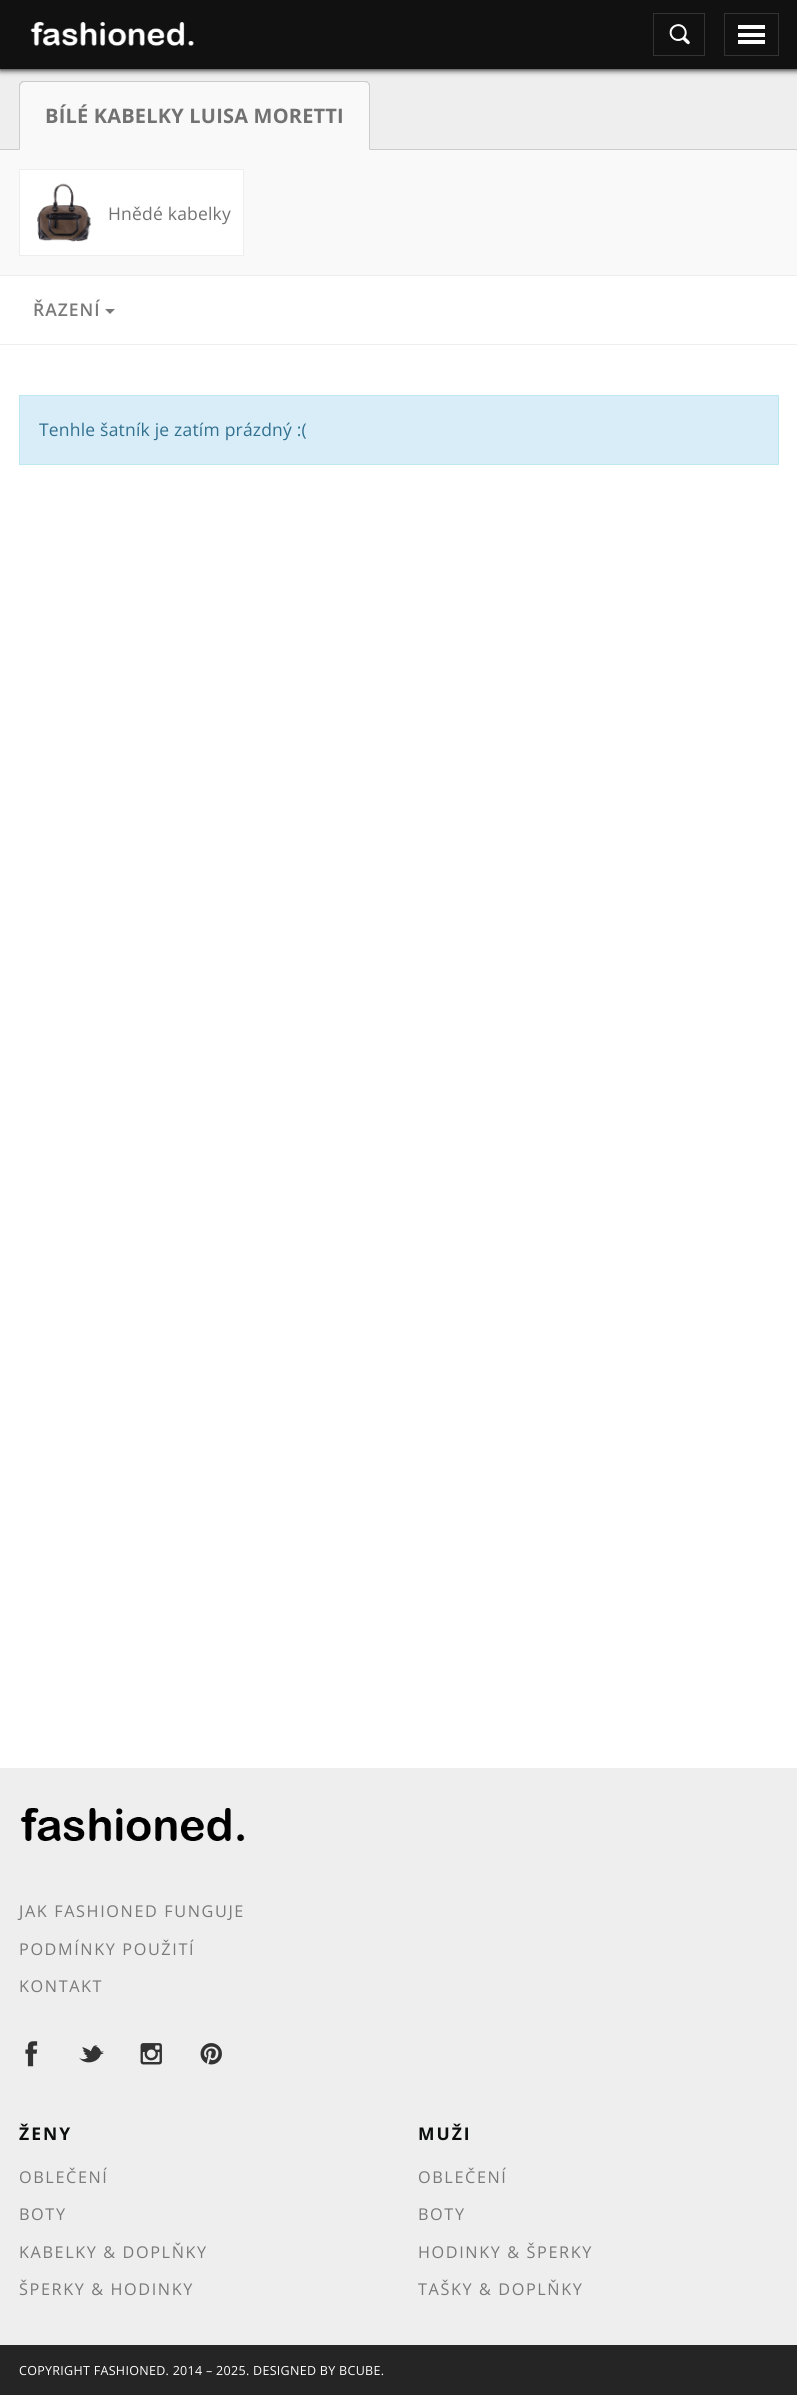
#include <cairo.h>
#include <math.h>
#include <stddef.h>


static void spaced_text(cairo_t *cr, double x, double y, const char *s, double letter, double word) {
    cairo_move_to(cr, x, y);
    while (*s) {
        char ch[5] = {0};
        int n = 0;
        do ch[n++] = *s++; while ((*s & 0xC0) == 0x80);
        cairo_show_text(cr, ch);
        cairo_rel_move_to(cr, letter + word * (*ch == ' '), 0);
    }
}

static void round_rect(cairo_t *cr, double x, double y, double w, double h, double r) {
    cairo_new_sub_path(cr);
    cairo_arc(cr, x + w - r, y + h - r, r, 0, M_PI / 2);
    cairo_arc(cr, x + r, y + h - r, r, M_PI / 2, M_PI);
    cairo_arc(cr, x + r, y + r, r, M_PI, 1.5 * M_PI);
    cairo_arc(cr, x + w - r, y + r, r, 1.5 * M_PI, 2 * M_PI);
    cairo_close_path(cr);
}

static void shadow(cairo_t *cr, double x, double y, double w, double h, double r, double blur, double alpha) {
    cairo_push_group_with_content(cr, CAIRO_CONTENT_ALPHA);
    cairo_set_operator(cr, CAIRO_OPERATOR_SOURCE);
    for (int i = 15; i >= -15 && fmin(w, h) + blur * i / 3 > 0; i -= 2) {
        double e = blur * i / 6;
        cairo_set_source_rgba(cr, 0, 0, 0, alpha * erfc((i - 1) / 8.5) / 2);
        round_rect(cr, x - e, y - e, w + 2 * e, h + 2 * e, fmax(0, fmin(r + e + blur * .6, fmin(w, h) / 2 + e)));
        cairo_fill(cr);
    }
    cairo_pattern_t *soft = cairo_pop_group(cr);
    cairo_mask(cr, soft);
    cairo_pattern_destroy(soft);
}

static void picture(cairo_t *cr, const char *path, double x, double y, double w, double h) {
    cairo_surface_t *image = cairo_image_surface_create_from_png(path);
    cairo_save(cr);
    cairo_set_source_surface(cr, image, x, y);
    cairo_rectangle(cr, x, y, w, h);
    cairo_fill(cr);
    cairo_restore(cr);
    cairo_surface_destroy(image);
}

int main(void) {
    cairo_surface_t *surface = cairo_image_surface_create(CAIRO_FORMAT_RGB24, 797, 2395);
    cairo_t *cr = cairo_create(surface);
    cairo_font_options_t *options = cairo_font_options_create();
    cairo_font_options_set_hint_metrics(options, CAIRO_HINT_METRICS_OFF);
    cairo_font_options_set_hint_style(options, CAIRO_HINT_STYLE_NONE);
    cairo_set_font_options(cr, options);
    cairo_set_miter_limit(cr, 4);
    cairo_set_source_rgb(cr, 1, 1, 1);
    cairo_paint(cr);
    cairo_set_source_rgb(cr, 0.933, 0.933, 0.933);
    cairo_rectangle(cr, 0, 69, 797, 80);
    cairo_fill(cr);
    cairo_set_source_rgb(cr, 0.067, 0.067, 0.067);
    shadow(cr, 0, 1, 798, 69, 0, 3, 1);
    cairo_set_source_rgb(cr, 0.067, 0.067, 0.067);
    cairo_rectangle(cr, 0, 0, 797, 69);
    cairo_fill(cr);
    picture(cr, "img1.png", 30, 22, 164, 24);
    cairo_rectangle(cr, 653.5, 13.5, 51, 42);
    cairo_set_source_rgb(cr, 0.2, 0.2, 0.2);
    cairo_set_line_width(cr, 1);
    cairo_stroke(cr);
    picture(cr, "img2.png", 669, 24, 21, 21);
    cairo_rectangle(cr, 724.5, 13.5, 54, 42);
    cairo_stroke(cr);
    cairo_set_source_rgb(cr, 1, 1, 1);
    cairo_rectangle(cr, 738, 25, 27, 4);
    cairo_fill(cr);
    cairo_rectangle(cr, 738, 33, 27, 4);
    cairo_fill(cr);
    cairo_rectangle(cr, 738, 40, 27, 4);
    cairo_fill(cr);
    cairo_set_source_rgb(cr, 0.8, 0.8, 0.8);
    cairo_rectangle(cr, 0, 149, 797, 1);
    cairo_fill(cr);
    cairo_set_source_rgb(cr, 0.973, 0.973, 0.973);
    cairo_new_path(cr);
    cairo_move_to(cr, 24, 81);
    cairo_line_to(cr, 365, 81);
    cairo_curve_to(cr, 368, 81, 370, 83, 370, 86);
    cairo_line_to(cr, 370, 150);
    cairo_line_to(cr, 19, 150);
    cairo_line_to(cr, 19, 86);
    cairo_curve_to(cr, 19, 83, 21, 81, 24, 81);
    cairo_close_path(cr);
    cairo_fill(cr);
    cairo_set_source_rgb(cr, 0.8, 0.8, 0.8);
    cairo_new_path(cr);
    cairo_move_to(cr, 24, 82);
    cairo_curve_to(cr, 23, 82, 22, 83, 21, 84);
    cairo_line_to(cr, 20, 83);
    cairo_line_to(cr, 22, 81);
    cairo_line_to(cr, 367, 81);
    cairo_line_to(cr, 369, 83);
    cairo_line_to(cr, 368, 83);
    cairo_line_to(cr, 365, 82);
    cairo_close_path(cr);
    cairo_fill(cr);
    cairo_new_path(cr);
    cairo_move_to(cr, 370, 150);
    cairo_line_to(cr, 370, 86);
    cairo_curve_to(cr, 370, 85, 370, 83, 369, 83);
    cairo_line_to(cr, 368, 83);
    cairo_line_to(cr, 369, 86);
    cairo_line_to(cr, 369, 149);
    cairo_close_path(cr);
    cairo_fill(cr);
    cairo_new_path(cr);
    cairo_move_to(cr, 19, 150);
    cairo_line_to(cr, 19, 86);
    cairo_curve_to(cr, 19, 85, 19, 83, 20, 83);
    cairo_line_to(cr, 21, 84);
    cairo_line_to(cr, 20, 86);
    cairo_line_to(cr, 20, 149);
    cairo_close_path(cr);
    cairo_fill(cr);
    cairo_select_font_face(cr, "Open Sans", CAIRO_FONT_SLANT_NORMAL, CAIRO_FONT_WEIGHT_BOLD);
    cairo_set_font_size(cr, 20);
    cairo_set_source_rgb(cr, 0.447, 0.447, 0.447);
    spaced_text(cr, 45, 123, "BÍLÉ KABELKY LUISA MORETTI", 0.2, 0);
    cairo_set_source_rgb(cr, 0.973, 0.973, 0.973);
    cairo_rectangle(cr, 0, 150, 797, 125);
    cairo_fill(cr);
    cairo_set_source_rgb(cr, 0.933, 0.933, 0.933);
    cairo_rectangle(cr, 0, 275, 797, 1);
    cairo_fill(cr);
    cairo_set_source_rgb(cr, 1, 1, 1);
    cairo_rectangle(cr, 19.5, 169.5, 224, 86);
    cairo_fill_preserve(cr);
    cairo_set_source_rgb(cr, 0.933, 0.933, 0.933);
    cairo_stroke(cr);
    picture(cr, "img3.png", 37, 183, 55, 59);
    cairo_select_font_face(cr, "Open Sans", CAIRO_FONT_SLANT_NORMAL, CAIRO_FONT_WEIGHT_NORMAL);
    cairo_set_font_size(cr, 17.5);
    cairo_set_source_rgb(cr, 0.447, 0.447, 0.447);
    spaced_text(cr, 108, 220, "Hnědé kabelky", 0.2, 0);
    cairo_set_source_rgb(cr, 0.933, 0.933, 0.933);
    cairo_rectangle(cr, 0, 344, 797, 1);
    cairo_fill(cr);
    cairo_select_font_face(cr, "Open Sans SemiBold", CAIRO_FONT_SLANT_NORMAL, CAIRO_FONT_WEIGHT_NORMAL);
    cairo_set_source_rgb(cr, 0.475, 0.475, 0.475);
    spaced_text(cr, 33, 316, "ŘAZENÍ", 1, 0);
    cairo_new_path(cr);
    cairo_move_to(cr, 105, 309);
    cairo_line_to(cr, 115, 309);
    cairo_line_to(cr, 110, 314);
    cairo_close_path(cr);
    cairo_fill(cr);
    cairo_set_source_rgb(cr, 0.851, 0.929, 0.969);
    cairo_rectangle(cr, 19.5, 395.5, 759, 69);
    cairo_fill_preserve(cr);
    cairo_set_source_rgb(cr, 0.737, 0.91, 0.945);
    cairo_stroke(cr);
    cairo_select_font_face(cr, "Open Sans", CAIRO_FONT_SLANT_NORMAL, CAIRO_FONT_WEIGHT_NORMAL);
    cairo_set_source_rgb(cr, 0.192, 0.439, 0.561);
    spaced_text(cr, 39, 436, "Tenhle šatník je zatím prázdný :(", 0.2, 0);
    cairo_set_source_rgb(cr, 0.933, 0.933, 0.933);
    cairo_rectangle(cr, 0, 1768, 797, 577);
    cairo_fill(cr);
    picture(cr, "img4.png", 20, 1808, 225, 33);
    cairo_set_font_size(cr, 16.25);
    cairo_set_source_rgb(cr, 0.475, 0.475, 0.475);
    spaced_text(cr, 19, 1917, "JAK FASHIONED FUNGUJE", 1.6, 0);
    spaced_text(cr, 19, 1955, "PODMÍNKY POUŽITÍ", 1.6, 0);
    spaced_text(cr, 19, 1992, "KONTAKT", 1.6, 0);
    picture(cr, "img5.png", 25, 2041, 13, 26);
    picture(cr, "img6.png", 79, 2045, 25, 18);
    picture(cr, "img7.png", 140, 2043, 22, 22);
    picture(cr, "img8.png", 200, 2043, 22, 22);
    cairo_select_font_face(cr, "Open Sans", CAIRO_FONT_SLANT_NORMAL, CAIRO_FONT_WEIGHT_BOLD);
    cairo_set_font_size(cr, 17.5);
    cairo_set_source_rgb(cr, 0.047, 0.051, 0.051);
    spaced_text(cr, 19, 2140, "ŽENY", 2, 0);
    cairo_select_font_face(cr, "Open Sans", CAIRO_FONT_SLANT_NORMAL, CAIRO_FONT_WEIGHT_NORMAL);
    cairo_set_font_size(cr, 16.25);
    cairo_set_source_rgb(cr, 0.475, 0.475, 0.475);
    spaced_text(cr, 19, 2183, "OBLEČENÍ", 1.6, 0);
    spaced_text(cr, 19, 2220, "BOTY", 1.6, 0);
    spaced_text(cr, 19, 2258, "KABELKY & DOPLŇKY", 1.6, 0);
    spaced_text(cr, 19, 2295, "ŠPERKY & HODINKY", 1.6, 0);
    cairo_select_font_face(cr, "Open Sans", CAIRO_FONT_SLANT_NORMAL, CAIRO_FONT_WEIGHT_BOLD);
    cairo_set_font_size(cr, 17.5);
    cairo_set_source_rgb(cr, 0.047, 0.051, 0.051);
    spaced_text(cr, 418, 2140, "MUŽI", 2, 0);
    cairo_select_font_face(cr, "Open Sans", CAIRO_FONT_SLANT_NORMAL, CAIRO_FONT_WEIGHT_NORMAL);
    cairo_set_font_size(cr, 16.25);
    cairo_set_source_rgb(cr, 0.475, 0.475, 0.475);
    spaced_text(cr, 418, 2183, "OBLEČENÍ", 1.6, 0);
    spaced_text(cr, 418, 2220, "BOTY", 1.6, 0);
    spaced_text(cr, 418, 2258, "HODINKY & ŠPERKY", 1.6, 0);
    spaced_text(cr, 418, 2295, "TAŠKY & DOPLŇKY", 1.6, 0);
    cairo_set_source_rgb(cr, 0.145, 0.145, 0.145);
    cairo_rectangle(cr, 0, 2345, 797, 50);
    cairo_fill(cr);
    cairo_set_font_size(cr, 12.5);
    cairo_set_source_rgb(cr, 1, 1, 1);
    spaced_text(cr, 19, 2375, "COPYRIGHT FASHIONED. 2014 – 2025. DESIGNED BY BCUBE.", 0.3, 0);
    cairo_surface_write_to_png(surface, "page.png");
    cairo_font_options_destroy(options);
    cairo_destroy(cr);
    cairo_surface_destroy(surface);
    return 0;
}
